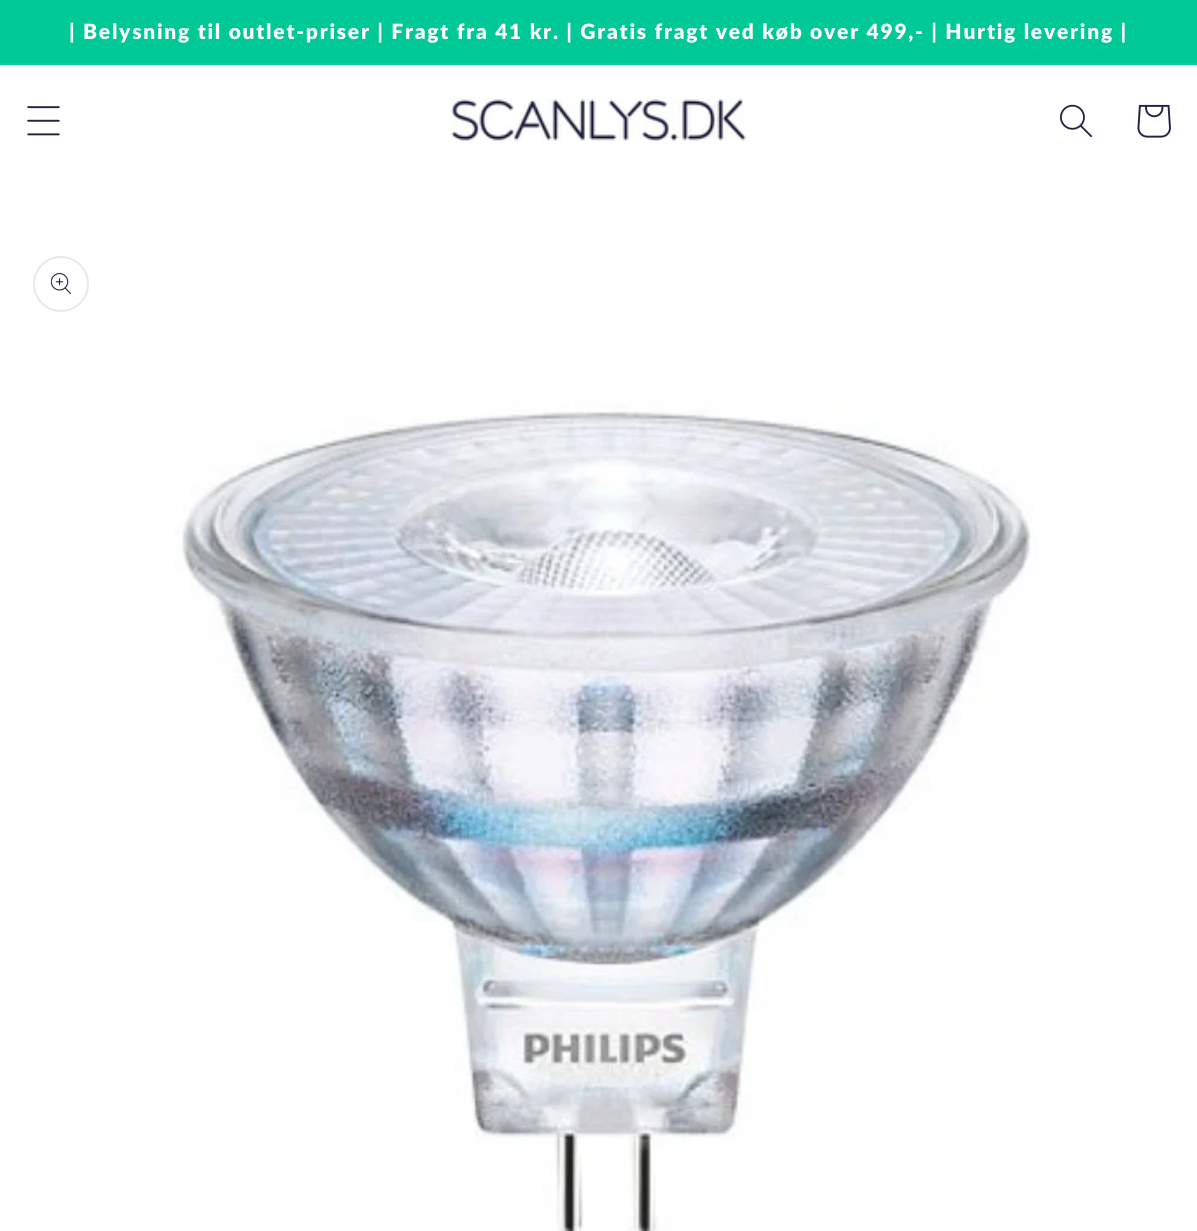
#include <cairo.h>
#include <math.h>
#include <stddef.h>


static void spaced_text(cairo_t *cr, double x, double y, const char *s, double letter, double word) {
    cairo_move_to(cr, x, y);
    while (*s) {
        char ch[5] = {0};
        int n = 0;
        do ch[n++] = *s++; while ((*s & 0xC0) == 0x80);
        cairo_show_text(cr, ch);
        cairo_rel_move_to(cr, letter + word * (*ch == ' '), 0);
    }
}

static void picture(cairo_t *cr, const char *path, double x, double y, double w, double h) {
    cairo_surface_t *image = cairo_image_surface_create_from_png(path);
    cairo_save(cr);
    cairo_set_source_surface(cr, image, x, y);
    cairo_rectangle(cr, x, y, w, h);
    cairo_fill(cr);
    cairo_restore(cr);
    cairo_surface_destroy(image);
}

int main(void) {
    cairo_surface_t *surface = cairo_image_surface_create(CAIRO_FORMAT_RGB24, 1197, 1231);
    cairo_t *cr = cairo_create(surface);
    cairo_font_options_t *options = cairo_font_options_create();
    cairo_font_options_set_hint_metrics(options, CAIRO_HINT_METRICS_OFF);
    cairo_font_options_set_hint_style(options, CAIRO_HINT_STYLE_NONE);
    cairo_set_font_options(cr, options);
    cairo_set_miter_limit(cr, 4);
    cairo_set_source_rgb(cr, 1, 1, 1);
    cairo_paint(cr);
    cairo_set_source_rgb(cr, 0, 0.784, 0.588);
    cairo_rectangle(cr, 0, 0, 1197, 63);
    cairo_fill(cr);
    cairo_set_source_rgb(cr, 0.078, 0.8, 0.62);
    cairo_rectangle(cr, 0, 63, 1197, 2);
    cairo_fill(cr);
    cairo_select_font_face(cr, "Lato ExtraBold", CAIRO_FONT_SLANT_NORMAL, CAIRO_FONT_WEIGHT_NORMAL);
    cairo_set_font_size(cr, 21);
    cairo_set_source_rgb(cr, 1, 1, 1);
    spaced_text(cr, 69, 39, "| Belysning til outlet-priser | Fragt fra 41 kr. | Gratis fragt ved køb over 499,- | Hurtig levering |", 1.75, 0);
    picture(cr, "img1.png", 27, 106, 33, 30);
    picture(cr, "img2.png", 450, 98, 296, 43);
    picture(cr, "img3.png", 1060, 104, 32, 34);
    picture(cr, "img4.png", 1137, 104, 34, 34);
    cairo_arc(cr, 61, 284, 27, 0, 2 * M_PI);
    cairo_set_source_rgb(cr, 0.914, 0.914, 0.929);
    cairo_stroke(cr);
    picture(cr, "img5.png", 51, 273, 20, 21);
    picture(cr, "img6.png", 174, 401, 864, 830);
    cairo_surface_write_to_png(surface, "page.png");
    cairo_font_options_destroy(options);
    cairo_destroy(cr);
    cairo_surface_destroy(surface);
    return 0;
}
